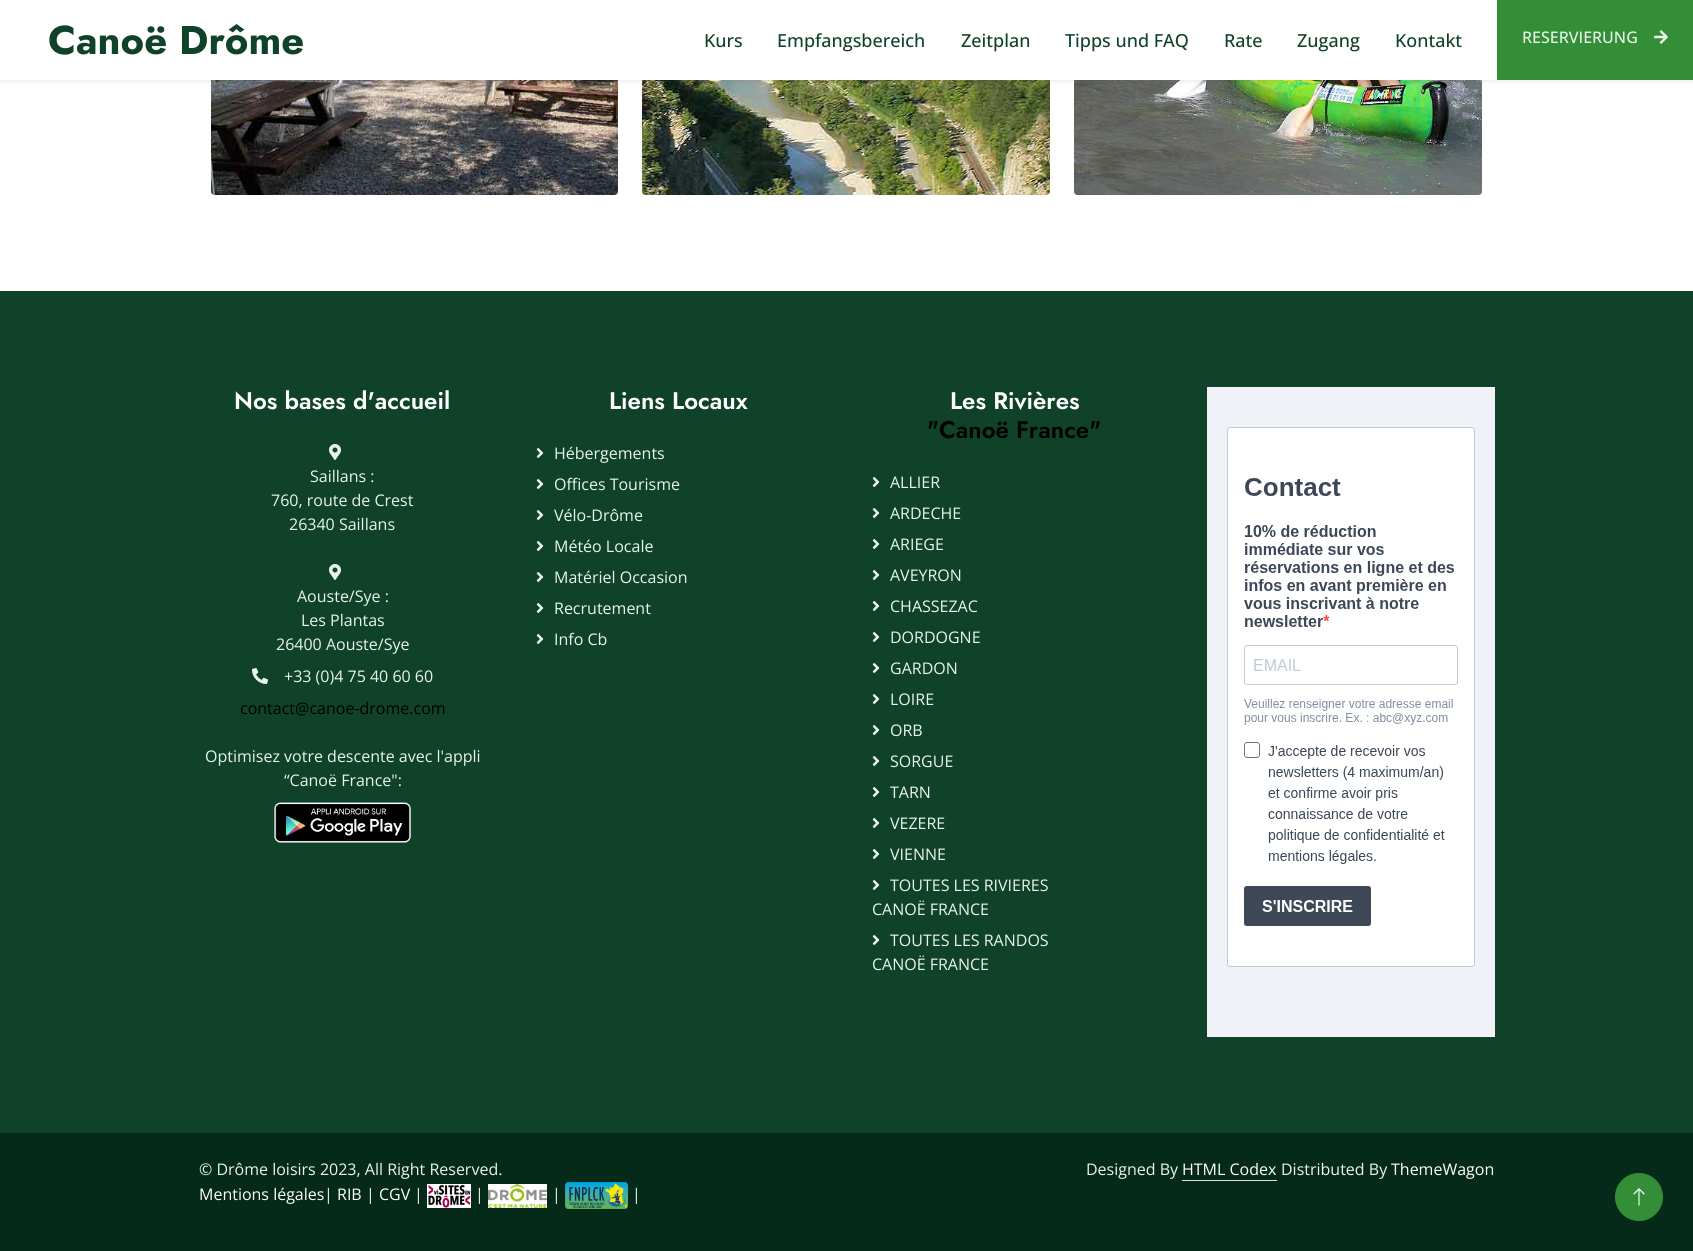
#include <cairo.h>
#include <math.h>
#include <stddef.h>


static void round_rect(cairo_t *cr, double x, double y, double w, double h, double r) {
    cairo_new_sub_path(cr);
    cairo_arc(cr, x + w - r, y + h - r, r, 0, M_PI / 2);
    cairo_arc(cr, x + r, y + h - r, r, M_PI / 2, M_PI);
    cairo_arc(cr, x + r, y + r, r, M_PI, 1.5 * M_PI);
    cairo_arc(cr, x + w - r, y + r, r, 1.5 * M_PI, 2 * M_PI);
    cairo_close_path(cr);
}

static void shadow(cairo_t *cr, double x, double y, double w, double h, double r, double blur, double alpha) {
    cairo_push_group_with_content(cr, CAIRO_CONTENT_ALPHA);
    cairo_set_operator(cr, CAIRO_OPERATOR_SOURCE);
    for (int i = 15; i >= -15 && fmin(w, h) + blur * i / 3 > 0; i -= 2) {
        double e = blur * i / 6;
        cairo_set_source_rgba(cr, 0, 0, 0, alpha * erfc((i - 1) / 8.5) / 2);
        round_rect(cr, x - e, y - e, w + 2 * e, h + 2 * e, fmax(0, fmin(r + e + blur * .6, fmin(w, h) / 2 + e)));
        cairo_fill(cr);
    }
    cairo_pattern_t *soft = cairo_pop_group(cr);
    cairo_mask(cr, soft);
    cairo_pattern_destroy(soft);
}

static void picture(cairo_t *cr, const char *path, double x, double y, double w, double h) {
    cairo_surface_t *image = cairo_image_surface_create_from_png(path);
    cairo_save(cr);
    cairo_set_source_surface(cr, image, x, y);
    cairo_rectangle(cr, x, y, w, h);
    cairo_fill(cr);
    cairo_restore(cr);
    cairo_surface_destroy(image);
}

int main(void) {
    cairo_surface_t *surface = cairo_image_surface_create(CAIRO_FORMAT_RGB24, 1693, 1251);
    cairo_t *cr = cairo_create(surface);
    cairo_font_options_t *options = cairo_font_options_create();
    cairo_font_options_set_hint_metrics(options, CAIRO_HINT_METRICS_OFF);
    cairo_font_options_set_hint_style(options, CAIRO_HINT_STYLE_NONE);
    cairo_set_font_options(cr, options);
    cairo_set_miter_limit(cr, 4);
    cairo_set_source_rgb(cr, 1, 1, 1);
    cairo_paint(cr);
    picture(cr, "img2.png", 211, 80, 407, 115);
    picture(cr, "img3.png", 642, 80, 408, 115);
    picture(cr, "img4.png", 1074, 80, 408, 115);
    cairo_set_source_rgb(cr, 0, 0, 0);
    shadow(cr, 0, 2, 1693, 80, 0, 2, 0.07);
    cairo_set_source_rgb(cr, 1, 1, 1);
    cairo_rectangle(cr, 0, 0, 1497, 80);
    cairo_fill(cr);
    cairo_select_font_face(cr, "Jost", CAIRO_FONT_SLANT_NORMAL, CAIRO_FONT_WEIGHT_BOLD);
    cairo_set_font_size(cr, 40);
    cairo_set_source_rgb(cr, 0.059, 0.259, 0.161);
    cairo_move_to(cr, 48, 54);
    cairo_show_text(cr, "Canoë Drôme");
    cairo_select_font_face(cr, "Open Sans Medium", CAIRO_FONT_SLANT_NORMAL, CAIRO_FONT_WEIGHT_NORMAL);
    cairo_set_font_size(cr, 18);
    cairo_move_to(cr, 704, 47);
    cairo_show_text(cr, "Kurs");
    cairo_move_to(cr, 777, 47);
    cairo_show_text(cr, "Empfangsbereich");
    cairo_move_to(cr, 961, 47);
    cairo_show_text(cr, "Zeitplan");
    cairo_move_to(cr, 1065, 47);
    cairo_show_text(cr, "Tipps und FAQ");
    cairo_move_to(cr, 1224, 47);
    cairo_show_text(cr, "Rate");
    cairo_move_to(cr, 1297, 47);
    cairo_show_text(cr, "Zugang");
    cairo_move_to(cr, 1395, 47);
    cairo_show_text(cr, "Kontakt");
    cairo_set_source_rgb(cr, 0.204, 0.557, 0.22);
    cairo_rectangle(cr, 1497, 0, 196, 80);
    cairo_fill(cr);
    cairo_set_font_size(cr, 16);
    cairo_set_source_rgb(cr, 0.91, 0.961, 0.914);
    cairo_move_to(cr, 1522, 43);
    cairo_show_text(cr, "RESERVIERUNG");
    picture(cr, "img1.png", 1654, 30, 14, 14);
    cairo_set_source_rgb(cr, 0.059, 0.259, 0.161);
    cairo_rectangle(cr, 0, 291, 1693, 842);
    cairo_fill(cr);
    cairo_select_font_face(cr, "Jost SemiBold", CAIRO_FONT_SLANT_NORMAL, CAIRO_FONT_WEIGHT_NORMAL);
    cairo_set_font_size(cr, 24);
    cairo_set_source_rgb(cr, 1, 1, 1);
    cairo_move_to(cr, 234, 409);
    cairo_show_text(cr, "Nos bases d'accueil");
    picture(cr, "img5.png", 329, 444, 12, 16);
    cairo_select_font_face(cr, "Open Sans", CAIRO_FONT_SLANT_NORMAL, CAIRO_FONT_WEIGHT_NORMAL);
    cairo_set_font_size(cr, 16);
    cairo_set_source_rgb(cr, 0.91, 0.961, 0.914);
    cairo_move_to(cr, 310, 482);
    cairo_show_text(cr, "Saillans :");
    cairo_move_to(cr, 271, 506);
    cairo_show_text(cr, "760, route de Crest");
    cairo_move_to(cr, 289, 530);
    cairo_show_text(cr, "26340 Saillans");
    picture(cr, "img5.png", 329, 564, 12, 16);
    cairo_move_to(cr, 297, 602);
    cairo_show_text(cr, "Aouste/Sye :");
    cairo_move_to(cr, 301, 626);
    cairo_show_text(cr, "Les Plantas");
    cairo_move_to(cr, 276, 650);
    cairo_show_text(cr, "26400 Aouste/Sye");
    picture(cr, "img6.png", 252, 668, 16, 16);
    cairo_move_to(cr, 284, 682);
    cairo_show_text(cr, "+33 (0)4 75 40 60 60");
    cairo_set_source_rgb(cr, 0, 0, 0);
    cairo_move_to(cr, 240, 714);
    cairo_show_text(cr, "contact@canoe-drome.com");
    cairo_set_source_rgb(cr, 0.91, 0.961, 0.914);
    cairo_move_to(cr, 205, 762);
    cairo_show_text(cr, "Optimisez votre descente avec l'appli");
    cairo_move_to(cr, 284, 786);
    cairo_show_text(cr, "“Canoë France\":");
    picture(cr, "img7.png", 274, 802, 137, 41);
    cairo_select_font_face(cr, "Jost SemiBold", CAIRO_FONT_SLANT_NORMAL, CAIRO_FONT_WEIGHT_NORMAL);
    cairo_set_font_size(cr, 24);
    cairo_set_source_rgb(cr, 1, 1, 1);
    cairo_move_to(cr, 609, 409);
    cairo_show_text(cr, "Liens Locaux");
    picture(cr, "img8.png", 536, 448, 8, 10);
    cairo_select_font_face(cr, "Open Sans", CAIRO_FONT_SLANT_NORMAL, CAIRO_FONT_WEIGHT_NORMAL);
    cairo_set_font_size(cr, 16);
    cairo_set_source_rgb(cr, 0.91, 0.961, 0.914);
    cairo_move_to(cr, 554, 459);
    cairo_show_text(cr, "Hébergements");
    picture(cr, "img8.png", 536, 479, 8, 10);
    cairo_move_to(cr, 554, 490);
    cairo_show_text(cr, "Offices Tourisme");
    picture(cr, "img8.png", 536, 510, 8, 10);
    cairo_move_to(cr, 554, 521);
    cairo_show_text(cr, "Vélo-Drôme");
    picture(cr, "img8.png", 536, 541, 8, 10);
    cairo_move_to(cr, 554, 552);
    cairo_show_text(cr, "Météo Locale");
    picture(cr, "img8.png", 536, 572, 8, 10);
    cairo_move_to(cr, 554, 583);
    cairo_show_text(cr, "Matériel Occasion");
    picture(cr, "img8.png", 536, 603, 8, 10);
    cairo_move_to(cr, 554, 614);
    cairo_show_text(cr, "Recrutement");
    picture(cr, "img8.png", 536, 634, 8, 10);
    cairo_move_to(cr, 554, 645);
    cairo_show_text(cr, "Info Cb");
    cairo_select_font_face(cr, "Jost SemiBold", CAIRO_FONT_SLANT_NORMAL, CAIRO_FONT_WEIGHT_NORMAL);
    cairo_set_font_size(cr, 24);
    cairo_set_source_rgb(cr, 1, 1, 1);
    cairo_move_to(cr, 950, 409);
    cairo_show_text(cr, "Les Rivières");
    cairo_set_source_rgb(cr, 0, 0, 0);
    cairo_move_to(cr, 927, 438);
    cairo_show_text(cr, "\"Canoë France\"");
    picture(cr, "img8.png", 872, 477, 8, 10);
    cairo_select_font_face(cr, "Open Sans", CAIRO_FONT_SLANT_NORMAL, CAIRO_FONT_WEIGHT_NORMAL);
    cairo_set_font_size(cr, 16);
    cairo_set_source_rgb(cr, 0.91, 0.961, 0.914);
    cairo_move_to(cr, 890, 488);
    cairo_show_text(cr, "ALLIER");
    picture(cr, "img8.png", 872, 508, 8, 10);
    cairo_move_to(cr, 890, 519);
    cairo_show_text(cr, "ARDECHE");
    picture(cr, "img8.png", 872, 539, 8, 10);
    cairo_move_to(cr, 890, 550);
    cairo_show_text(cr, "ARIEGE");
    picture(cr, "img8.png", 872, 570, 8, 10);
    cairo_move_to(cr, 890, 581);
    cairo_show_text(cr, "AVEYRON");
    picture(cr, "img8.png", 872, 601, 8, 10);
    cairo_move_to(cr, 890, 612);
    cairo_show_text(cr, "CHASSEZAC");
    picture(cr, "img8.png", 872, 632, 8, 10);
    cairo_move_to(cr, 890, 643);
    cairo_show_text(cr, "DORDOGNE");
    picture(cr, "img8.png", 872, 663, 8, 10);
    cairo_move_to(cr, 890, 674);
    cairo_show_text(cr, "GARDON");
    picture(cr, "img8.png", 872, 694, 8, 10);
    cairo_move_to(cr, 890, 705);
    cairo_show_text(cr, "LOIRE");
    picture(cr, "img8.png", 872, 725, 8, 10);
    cairo_move_to(cr, 890, 736);
    cairo_show_text(cr, "ORB");
    picture(cr, "img8.png", 872, 756, 8, 10);
    cairo_move_to(cr, 890, 767);
    cairo_show_text(cr, "SORGUE");
    picture(cr, "img8.png", 872, 787, 8, 10);
    cairo_move_to(cr, 890, 798);
    cairo_show_text(cr, "TARN");
    picture(cr, "img8.png", 872, 818, 8, 10);
    cairo_move_to(cr, 890, 829);
    cairo_show_text(cr, "VEZERE");
    picture(cr, "img8.png", 872, 849, 8, 10);
    cairo_move_to(cr, 890, 860);
    cairo_show_text(cr, "VIENNE");
    picture(cr, "img8.png", 872, 880, 8, 10);
    cairo_move_to(cr, 890, 891);
    cairo_show_text(cr, "TOUTES LES RIVIERES");
    cairo_move_to(cr, 872, 915);
    cairo_show_text(cr, "CANOË FRANCE");
    picture(cr, "img8.png", 872, 935, 8, 10);
    cairo_move_to(cr, 890, 946);
    cairo_show_text(cr, "TOUTES LES RANDOS");
    cairo_move_to(cr, 872, 970);
    cairo_show_text(cr, "CANOË FRANCE");
    picture(cr, "img9.png", 1207, 387, 288, 650);
    cairo_set_source_rgb(cr, 0.027, 0.165, 0.098);
    cairo_rectangle(cr, 0, 1133, 1693, 118);
    cairo_fill(cr);
    cairo_set_source_rgb(cr, 0.91, 0.961, 0.914);
    cairo_move_to(cr, 199, 1175);
    cairo_show_text(cr, "© Drôme loisirs 2023, All Right Reserved.");
    cairo_set_source_rgb(cr, 1, 1, 1);
    cairo_move_to(cr, 199, 1200);
    cairo_show_text(cr, "Mentions légales");
    cairo_set_source_rgb(cr, 0.91, 0.961, 0.914);
    cairo_move_to(cr, 324, 1200);
    cairo_show_text(cr, "|");
    cairo_set_source_rgb(cr, 1, 1, 1);
    cairo_move_to(cr, 337, 1200);
    cairo_show_text(cr, "RIB");
    cairo_set_source_rgb(cr, 0.91, 0.961, 0.914);
    cairo_move_to(cr, 366, 1200);
    cairo_show_text(cr, "|");
    cairo_set_source_rgb(cr, 1, 1, 1);
    cairo_move_to(cr, 379, 1200);
    cairo_show_text(cr, "CGV");
    cairo_set_source_rgb(cr, 0.91, 0.961, 0.914);
    cairo_move_to(cr, 414, 1200);
    cairo_show_text(cr, "|");
    picture(cr, "img10.png", 427, 1184, 44, 24);
    cairo_move_to(cr, 475, 1200);
    cairo_show_text(cr, "|");
    picture(cr, "img11.png", 488, 1184, 59, 24);
    cairo_move_to(cr, 552, 1200);
    cairo_show_text(cr, "|");
    picture(cr, "img12.png", 565, 1182, 63, 27);
    cairo_move_to(cr, 632, 1200);
    cairo_show_text(cr, "|");
    cairo_move_to(cr, 1086, 1175);
    cairo_show_text(cr, "Designed By");
    cairo_set_source_rgb(cr, 1, 1, 1);
    cairo_move_to(cr, 1182, 1175);
    cairo_show_text(cr, "HTML Codex");
    cairo_set_source_rgb(cr, 0.871, 0.886, 0.902);
    cairo_rectangle(cr, 1182, 1180, 95, 1);
    cairo_fill(cr);
    cairo_set_source_rgb(cr, 0.91, 0.961, 0.914);
    cairo_move_to(cr, 1281, 1175);
    cairo_show_text(cr, "Distributed By");
    cairo_set_source_rgb(cr, 1, 1, 1);
    cairo_move_to(cr, 1391, 1175);
    cairo_show_text(cr, "ThemeWagon");
    cairo_set_source_rgb(cr, 0.204, 0.557, 0.22);
    cairo_new_path(cr);
    cairo_arc(cr, 1639, 1197, 23.5, 0, 2 * M_PI);
    cairo_fill_preserve(cr);
    cairo_set_line_width(cr, 1);
    cairo_stroke(cr);
    picture(cr, "img13.png", 1633, 1188, 12, 18);
    cairo_surface_write_to_png(surface, "page.png");
    cairo_font_options_destroy(options);
    cairo_destroy(cr);
    cairo_surface_destroy(surface);
    return 0;
}
